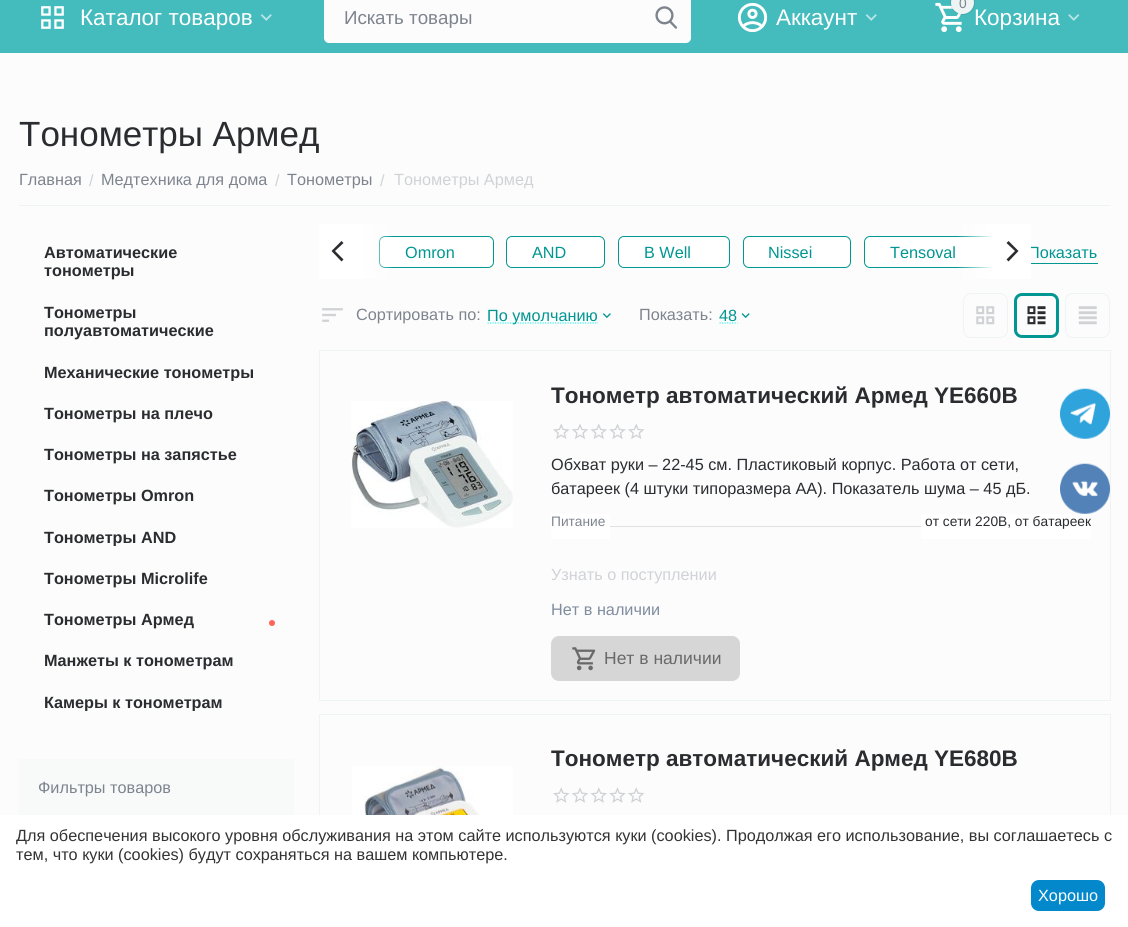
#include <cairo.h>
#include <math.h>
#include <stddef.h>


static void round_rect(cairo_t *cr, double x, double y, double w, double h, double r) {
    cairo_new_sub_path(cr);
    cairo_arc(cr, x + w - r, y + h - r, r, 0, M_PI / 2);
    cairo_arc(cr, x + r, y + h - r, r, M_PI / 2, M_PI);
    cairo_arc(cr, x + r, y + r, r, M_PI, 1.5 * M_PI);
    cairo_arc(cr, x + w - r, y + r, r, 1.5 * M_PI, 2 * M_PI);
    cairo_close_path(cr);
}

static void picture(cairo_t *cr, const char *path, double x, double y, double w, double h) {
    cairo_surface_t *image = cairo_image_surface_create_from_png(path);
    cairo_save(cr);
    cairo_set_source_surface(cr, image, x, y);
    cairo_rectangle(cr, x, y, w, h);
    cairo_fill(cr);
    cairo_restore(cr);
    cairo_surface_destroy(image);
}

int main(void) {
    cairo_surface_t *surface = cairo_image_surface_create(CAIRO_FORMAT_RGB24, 1128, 927);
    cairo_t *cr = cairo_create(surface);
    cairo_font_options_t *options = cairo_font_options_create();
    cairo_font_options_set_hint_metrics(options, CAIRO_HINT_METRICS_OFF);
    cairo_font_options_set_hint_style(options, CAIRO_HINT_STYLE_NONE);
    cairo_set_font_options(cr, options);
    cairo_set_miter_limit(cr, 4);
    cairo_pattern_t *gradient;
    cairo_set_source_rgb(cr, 0.988, 0.988, 0.988);
    cairo_paint(cr);
    cairo_set_source_rgb(cr, 0.267, 0.733, 0.741);
    cairo_rectangle(cr, 0, 0, 1128, 53);
    cairo_fill(cr);
    picture(cr, "img1.png", 41, 6, 23, 23);
    cairo_select_font_face(cr, "Liberation Sans", CAIRO_FONT_SLANT_NORMAL, CAIRO_FONT_WEIGHT_NORMAL);
    cairo_set_font_size(cr, 22.5);
    cairo_set_source_rgb(cr, 1, 1, 1);
    cairo_move_to(cr, 80, 25);
    cairo_show_text(cr, "Каталог товаров");
    picture(cr, "img2.png", 260, 14, 12, 7);
    cairo_set_source_rgb(cr, 0.988, 0.988, 0.988);
    round_rect(cr, 324, -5, 367, 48, 5);
    cairo_fill(cr);
    cairo_set_font_size(cr, 18.75);
    cairo_set_source_rgb(cr, 0.494, 0.518, 0.557);
    cairo_move_to(cr, 344, 24);
    cairo_show_text(cr, "Искать товары");
    picture(cr, "img3.png", 655, 6, 23, 23);
    picture(cr, "img4.png", 737, 2, 31, 31);
    cairo_set_font_size(cr, 22.5);
    cairo_set_source_rgb(cr, 1, 1, 1);
    cairo_move_to(cr, 776, 25);
    cairo_show_text(cr, "Аккаунт");
    picture(cr, "img2.png", 865, 14, 12, 7);
    picture(cr, "img5.png", 935, 2, 27, 31);
    cairo_arc(cr, 962.5, 2.5, 12, 0, 2 * M_PI);
    cairo_set_source_rgba(cr, 0, 0, 0, 0.1);
    cairo_set_line_width(cr, 1);
    cairo_stroke(cr);
    cairo_set_source_rgb(cr, 0.933, 0.953, 0.957);
    cairo_arc(cr, 962.5, 2.5, 11.5, 0, 2 * M_PI);
    cairo_fill(cr);
    cairo_set_font_size(cr, 13.75);
    cairo_set_source_rgb(cr, 0.494, 0.518, 0.557);
    cairo_move_to(cr, 959, 8);
    cairo_show_text(cr, "0");
    cairo_set_font_size(cr, 22.5);
    cairo_set_source_rgb(cr, 1, 1, 1);
    cairo_move_to(cr, 974, 25);
    cairo_show_text(cr, "Корзина");
    picture(cr, "img6.png", 1068, 14, 12, 7);
    cairo_set_font_size(cr, 35);
    cairo_set_source_rgb(cr, 0.165, 0.173, 0.188);
    cairo_move_to(cr, 19, 146);
    cairo_show_text(cr, "Тонометры Армед");
    cairo_set_source_rgb(cr, 0.933, 0.953, 0.957);
    cairo_rectangle(cr, 19, 205, 1091, 1);
    cairo_fill(cr);
    cairo_set_font_size(cr, 16.25);
    cairo_set_source_rgb(cr, 0.494, 0.518, 0.557);
    cairo_move_to(cr, 19, 185);
    cairo_show_text(cr, "Главная");
    cairo_set_source_rgb(cr, 0.816, 0.824, 0.839);
    cairo_move_to(cr, 89, 186);
    cairo_show_text(cr, "/");
    cairo_set_source_rgb(cr, 0.494, 0.518, 0.557);
    cairo_move_to(cr, 101, 185);
    cairo_show_text(cr, "Медтехника для дома");
    cairo_set_source_rgb(cr, 0.816, 0.824, 0.839);
    cairo_move_to(cr, 275, 186);
    cairo_show_text(cr, "/");
    cairo_set_source_rgb(cr, 0.494, 0.518, 0.557);
    cairo_move_to(cr, 287, 185);
    cairo_show_text(cr, "Тонометры");
    cairo_set_source_rgb(cr, 0.816, 0.824, 0.839);
    cairo_move_to(cr, 380, 186);
    cairo_show_text(cr, "/");
    cairo_move_to(cr, 394, 185);
    cairo_show_text(cr, "Тонометры Армед");
    cairo_select_font_face(cr, "Liberation Sans", CAIRO_FONT_SLANT_NORMAL, CAIRO_FONT_WEIGHT_BOLD);
    cairo_set_source_rgb(cr, 0.165, 0.173, 0.188);
    cairo_move_to(cr, 44, 258);
    cairo_show_text(cr, "Автоматические");
    cairo_move_to(cr, 44, 276);
    cairo_show_text(cr, "тонометры");
    cairo_move_to(cr, 44, 318);
    cairo_show_text(cr, "Тонометры");
    cairo_move_to(cr, 44, 336);
    cairo_show_text(cr, "полуавтоматические");
    cairo_save(cr);
    cairo_rectangle(cr, 19, 344, 275, 37);
    cairo_clip(cr);
    cairo_move_to(cr, 44, 378);
    cairo_show_text(cr, "Механические тонометры");
    cairo_restore(cr);
    cairo_move_to(cr, 44, 419);
    cairo_show_text(cr, "Тонометры на плечо");
    cairo_move_to(cr, 44, 460);
    cairo_show_text(cr, "Тонометры на запястье");
    cairo_move_to(cr, 44, 501);
    cairo_show_text(cr, "Тонометры Omron");
    cairo_save(cr);
    cairo_rectangle(cr, 19, 509, 275, 37);
    cairo_clip(cr);
    cairo_move_to(cr, 44, 543);
    cairo_show_text(cr, "Тонометры AND");
    cairo_restore(cr);
    cairo_move_to(cr, 44, 584);
    cairo_show_text(cr, "Тонометры Microlife");
    cairo_move_to(cr, 44, 625);
    cairo_show_text(cr, "Тонометры Армед");
    cairo_set_source_rgb(cr, 1, 0.392, 0.341);
    cairo_new_path(cr);
    cairo_arc(cr, 272, 623, 3, 0, 2 * M_PI);
    cairo_fill(cr);
    cairo_set_source_rgb(cr, 0.165, 0.173, 0.188);
    cairo_move_to(cr, 44, 666);
    cairo_show_text(cr, "Манжеты к тонометрам");
    cairo_save(cr);
    cairo_rectangle(cr, 19, 674, 275, 37);
    cairo_clip(cr);
    cairo_move_to(cr, 44, 708);
    cairo_show_text(cr, "Камеры к тонометрам");
    cairo_restore(cr);
    cairo_set_source_rgb(cr, 0.969, 0.98, 0.98);
    cairo_rectangle(cr, 19, 759, 275, 56);
    cairo_fill(cr);
    cairo_select_font_face(cr, "Liberation Sans", CAIRO_FONT_SLANT_NORMAL, CAIRO_FONT_WEIGHT_NORMAL);
    cairo_set_source_rgb(cr, 0.494, 0.518, 0.557);
    cairo_move_to(cr, 38, 793);
    cairo_show_text(cr, "Фильтры товаров");
    cairo_set_source_rgb(cr, 1, 1, 1);
    round_rect(cr, 379.5, 236.5, 114, 31, 5.5);
    cairo_fill_preserve(cr);
    cairo_set_source_rgb(cr, 0, 0.588, 0.569);
    cairo_stroke(cr);
    gradient = cairo_pattern_create_linear(319, 251, 394, 251);
    cairo_pattern_add_color_stop_rgba(gradient, 0.5, 1, 1, 1, 1);
    cairo_pattern_add_color_stop_rgba(gradient, 1, 1, 1, 1, 0);
    cairo_set_source(cr, gradient);
    cairo_pattern_destroy(gradient);
    cairo_rectangle(cr, 319, 224, 74, 55);
    cairo_fill(cr);
    cairo_set_source_rgb(cr, 0.165, 0.173, 0.188);
    cairo_new_path(cr);
    cairo_move_to(cr, 343.5, 243);
    cairo_line_to(cr, 341.5, 241);
    cairo_line_to(cr, 331.5, 251);
    cairo_line_to(cr, 341.5, 261.5);
    cairo_line_to(cr, 343.5, 259.5);
    cairo_line_to(cr, 335, 251);
    cairo_close_path(cr);
    cairo_fill(cr);
    cairo_set_source_rgb(cr, 0, 0.588, 0.569);
    cairo_move_to(cr, 405, 258);
    cairo_show_text(cr, "Omron");
    cairo_set_source_rgb(cr, 1, 1, 1);
    round_rect(cr, 506.5, 236.5, 98, 31, 5.5);
    cairo_fill_preserve(cr);
    cairo_set_source_rgb(cr, 0, 0.588, 0.569);
    cairo_stroke(cr);
    cairo_move_to(cr, 532, 258);
    cairo_show_text(cr, "AND");
    cairo_set_source_rgb(cr, 1, 1, 1);
    round_rect(cr, 618.5, 236.5, 111, 31, 5.5);
    cairo_fill_preserve(cr);
    cairo_set_source_rgb(cr, 0, 0.588, 0.569);
    cairo_stroke(cr);
    cairo_move_to(cr, 644, 258);
    cairo_show_text(cr, "B Well");
    cairo_set_source_rgb(cr, 1, 1, 1);
    round_rect(cr, 743.5, 236.5, 107, 31, 5.5);
    cairo_fill_preserve(cr);
    cairo_set_source_rgb(cr, 0, 0.588, 0.569);
    cairo_stroke(cr);
    cairo_move_to(cr, 768, 258);
    cairo_show_text(cr, "Nissei");
    cairo_set_source_rgb(cr, 1, 1, 1);
    round_rect(cr, 864.5, 236.5, 130, 31, 5.5);
    cairo_fill_preserve(cr);
    cairo_set_source_rgb(cr, 0, 0.588, 0.569);
    cairo_stroke(cr);
    cairo_move_to(cr, 890, 258);
    cairo_show_text(cr, "Tensoval");
    cairo_move_to(cr, 1028, 258);
    cairo_show_text(cr, "Показать");
    cairo_rectangle(cr, 1029, 263, 69, 1);
    cairo_fill(cr);
    gradient = cairo_pattern_create_linear(1031, 251, 956, 251);
    cairo_pattern_add_color_stop_rgba(gradient, 0.5, 1, 1, 1, 1);
    cairo_pattern_add_color_stop_rgba(gradient, 1, 1, 1, 1, 0);
    cairo_set_source(cr, gradient);
    cairo_pattern_destroy(gradient);
    cairo_rectangle(cr, 957, 224, 74, 55);
    cairo_fill(cr);
    cairo_set_source_rgb(cr, 0.165, 0.173, 0.188);
    cairo_new_path(cr);
    cairo_move_to(cr, 1006.5, 259.5);
    cairo_line_to(cr, 1008.5, 261.5);
    cairo_line_to(cr, 1018.5, 251);
    cairo_line_to(cr, 1008.5, 241);
    cairo_line_to(cr, 1006.5, 243);
    cairo_line_to(cr, 1015, 251);
    cairo_close_path(cr);
    cairo_fill(cr);
    picture(cr, "img7.png", 322, 308, 21, 14);
    cairo_set_source_rgb(cr, 0.494, 0.518, 0.557);
    cairo_move_to(cr, 356, 320);
    cairo_show_text(cr, "Сортировать по:");
    cairo_new_path(cr);
    cairo_move_to(cr, 487.5, 323);
    cairo_line_to(cr, 598, 323);
    cairo_set_source_rgb(cr, 0.227, 0.961, 0.933);
    cairo_set_line_width(cr, 1.2);
    cairo_set_dash(cr, (double[]){1.25, 1.25}, 2, 0);
    cairo_stroke(cr);
    cairo_set_source_rgb(cr, 0, 0.588, 0.569);
    cairo_move_to(cr, 487, 321);
    cairo_show_text(cr, "По умолчанию");
    picture(cr, "img8.png", 602, 313, 9, 5);
    cairo_set_source_rgb(cr, 0.494, 0.518, 0.557);
    cairo_move_to(cr, 639, 320);
    cairo_show_text(cr, "Показать:");
    cairo_set_source_rgb(cr, 0, 0.588, 0.569);
    cairo_move_to(cr, 719, 321);
    cairo_show_text(cr, "48");
    cairo_new_path(cr);
    cairo_move_to(cr, 719.5, 323);
    cairo_line_to(cr, 737.5, 323);
    cairo_set_source_rgb(cr, 0.227, 0.961, 0.933);
    cairo_stroke(cr);
    picture(cr, "img9.png", 741, 313, 9, 5);
    round_rect(cr, 963.5, 293.5, 44, 44, 7.5);
    cairo_set_source_rgb(cr, 0.933, 0.953, 0.957);
    cairo_set_line_width(cr, 1);
    cairo_set_dash(cr, NULL, 0, 0);
    cairo_stroke(cr);
    picture(cr, "img10.png", 976, 306, 19, 19);
    round_rect(cr, 1015.5, 294.5, 42, 42, 6.5);
    cairo_set_source_rgb(cr, 0, 0.588, 0.569);
    cairo_set_line_width(cr, 3);
    cairo_stroke(cr);
    picture(cr, "img11.png", 1027, 306, 19, 19);
    round_rect(cr, 1065.5, 293.5, 44, 44, 7.5);
    cairo_set_source_rgb(cr, 0.933, 0.953, 0.957);
    cairo_set_line_width(cr, 1);
    cairo_stroke(cr);
    picture(cr, "img12.png", 1078, 306, 19, 19);
    cairo_rectangle(cr, 319.5, 350.5, 791, 350);
    cairo_stroke(cr);
    picture(cr, "img13.png", 351, 401, 162, 127);
    cairo_select_font_face(cr, "Liberation Sans", CAIRO_FONT_SLANT_NORMAL, CAIRO_FONT_WEIGHT_BOLD);
    cairo_set_font_size(cr, 22.5);
    cairo_set_source_rgb(cr, 0.165, 0.173, 0.188);
    cairo_move_to(cr, 551, 403);
    cairo_show_text(cr, "Тонометр автоматический Армед YE660B");
    picture(cr, "img14.png", 553, 423, 17, 16);
    picture(cr, "img15.png", 572, 423, 16, 16);
    picture(cr, "img16.png", 590, 423, 17, 16);
    picture(cr, "img17.png", 609, 423, 17, 16);
    picture(cr, "img14.png", 628, 423, 17, 16);
    cairo_select_font_face(cr, "Liberation Sans", CAIRO_FONT_SLANT_NORMAL, CAIRO_FONT_WEIGHT_NORMAL);
    cairo_set_font_size(cr, 16.25);
    cairo_move_to(cr, 551, 470);
    cairo_show_text(cr, "Обхват руки – 22-45 см. Пластиковый корпус. Работа от сети,");
    cairo_move_to(cr, 551, 494);
    cairo_show_text(cr, "батареек (4 штуки типоразмера AA). Показатель шума – 45 дБ.");
    cairo_set_source_rgb(cr, 1, 1, 1);
    cairo_rectangle(cr, 551, 514, 59, 25);
    cairo_fill(cr);
    cairo_set_font_size(cr, 13.75);
    cairo_set_source_rgb(cr, 0.494, 0.518, 0.557);
    cairo_move_to(cr, 551, 526);
    cairo_show_text(cr, "Питание");
    cairo_set_source_rgb(cr, 0.882, 0.882, 0.882);
    cairo_rectangle(cr, 610, 526, 311, 1);
    cairo_fill(cr);
    cairo_set_source_rgb(cr, 1, 1, 1);
    cairo_rectangle(cr, 921, 514, 170, 25);
    cairo_fill(cr);
    cairo_set_source_rgb(cr, 0.165, 0.173, 0.188);
    cairo_move_to(cr, 925, 526);
    cairo_show_text(cr, "от сети 220В, от батареек");
    cairo_set_font_size(cr, 16.25);
    cairo_set_source_rgb(cr, 0.816, 0.824, 0.839);
    cairo_move_to(cr, 551, 580);
    cairo_show_text(cr, "Узнать о поступлении");
    cairo_set_source_rgb(cr, 0.502, 0.553, 0.624);
    cairo_move_to(cr, 551, 615);
    cairo_show_text(cr, "Нет в наличии");
    cairo_set_source_rgb(cr, 0.839, 0.839, 0.839);
    round_rect(cr, 551, 636, 189, 45, 8);
    cairo_fill(cr);
    picture(cr, "img18.png", 572, 647, 24, 24);
    cairo_set_font_size(cr, 17.5);
    cairo_set_source_rgb(cr, 0.412, 0.412, 0.412);
    cairo_move_to(cr, 604, 664);
    cairo_show_text(cr, "Нет в наличии");
    cairo_rectangle(cr, 319.5, 714.5, 791, 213);
    cairo_set_source_rgb(cr, 0.933, 0.953, 0.957);
    cairo_stroke(cr);
    cairo_select_font_face(cr, "Liberation Sans", CAIRO_FONT_SLANT_NORMAL, CAIRO_FONT_WEIGHT_BOLD);
    cairo_set_font_size(cr, 22.5);
    cairo_set_source_rgb(cr, 0.165, 0.173, 0.188);
    cairo_move_to(cr, 551, 766);
    cairo_show_text(cr, "Тонометр автоматический Армед YE680B");
    picture(cr, "img19.png", 553, 787, 17, 16);
    picture(cr, "img20.png", 572, 787, 16, 16);
    picture(cr, "img21.png", 590, 787, 17, 16);
    picture(cr, "img22.png", 609, 787, 17, 16);
    picture(cr, "img19.png", 628, 787, 17, 16);
    picture(cr, "img23.png", 352, 766, 161, 49);
    picture(cr, "img24.png", 1060, 388, 50, 51);
    picture(cr, "img25.png", 1060, 463, 50, 51);
    cairo_set_source_rgb(cr, 1, 1, 1);
    cairo_rectangle(cr, 0, 815, 1128, 112);
    cairo_fill(cr);
    cairo_select_font_face(cr, "Liberation Sans", CAIRO_FONT_SLANT_NORMAL, CAIRO_FONT_WEIGHT_NORMAL);
    cairo_set_font_size(cr, 16.25);
    cairo_set_source_rgb(cr, 0.2, 0.2, 0.2);
    cairo_move_to(cr, 16, 841);
    cairo_show_text(cr, "Для обеспечения высокого уровня обслуживания на этом сайте используются куки (cookies). Продолжая его использование, вы соглашаетесь с");
    cairo_move_to(cr, 16, 860);
    cairo_show_text(cr, "тем, что куки (cookies) будут сохраняться на вашем компьютере.");
    cairo_set_source_rgb(cr, 0.012, 0.533, 0.8);
    round_rect(cr, 1031, 880, 74, 31, 8);
    cairo_fill(cr);
    cairo_set_source_rgb(cr, 1, 1, 1);
    cairo_move_to(cr, 1038, 901);
    cairo_show_text(cr, "Хорошо");
    cairo_surface_write_to_png(surface, "page.png");
    cairo_font_options_destroy(options);
    cairo_destroy(cr);
    cairo_surface_destroy(surface);
    return 0;
}
